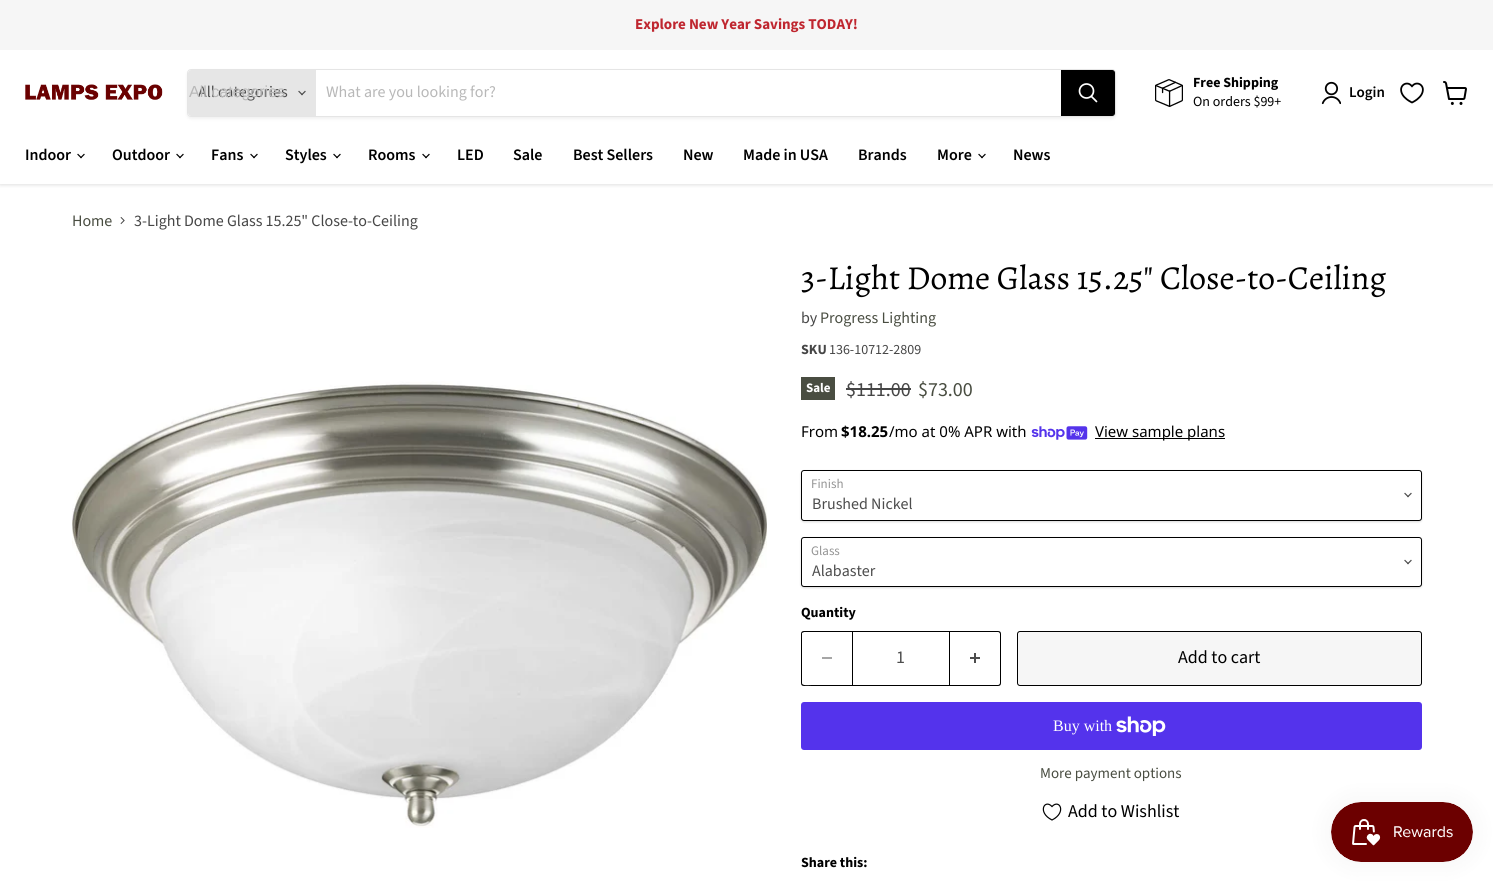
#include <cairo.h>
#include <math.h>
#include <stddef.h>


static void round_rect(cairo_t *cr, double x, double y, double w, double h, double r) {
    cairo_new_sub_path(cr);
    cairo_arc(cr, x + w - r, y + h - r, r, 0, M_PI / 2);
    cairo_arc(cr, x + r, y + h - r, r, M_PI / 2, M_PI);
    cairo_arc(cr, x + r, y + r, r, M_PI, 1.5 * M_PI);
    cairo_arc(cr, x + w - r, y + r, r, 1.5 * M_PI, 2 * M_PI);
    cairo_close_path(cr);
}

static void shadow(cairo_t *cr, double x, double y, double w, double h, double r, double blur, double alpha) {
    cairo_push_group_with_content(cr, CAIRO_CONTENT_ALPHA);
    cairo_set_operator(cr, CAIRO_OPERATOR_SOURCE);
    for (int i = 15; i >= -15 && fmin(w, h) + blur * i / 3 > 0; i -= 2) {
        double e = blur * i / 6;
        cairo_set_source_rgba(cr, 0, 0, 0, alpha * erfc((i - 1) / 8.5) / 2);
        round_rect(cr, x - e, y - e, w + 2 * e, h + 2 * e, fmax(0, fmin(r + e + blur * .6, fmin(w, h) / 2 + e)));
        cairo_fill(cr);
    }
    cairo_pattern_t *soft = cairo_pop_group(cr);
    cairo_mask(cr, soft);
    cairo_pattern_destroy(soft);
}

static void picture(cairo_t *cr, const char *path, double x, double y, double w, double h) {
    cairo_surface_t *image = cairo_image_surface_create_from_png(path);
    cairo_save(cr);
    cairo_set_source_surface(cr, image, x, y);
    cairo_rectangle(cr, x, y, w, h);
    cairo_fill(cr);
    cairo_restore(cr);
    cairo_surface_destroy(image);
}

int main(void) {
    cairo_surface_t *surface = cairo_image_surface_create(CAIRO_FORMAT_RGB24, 1493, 882);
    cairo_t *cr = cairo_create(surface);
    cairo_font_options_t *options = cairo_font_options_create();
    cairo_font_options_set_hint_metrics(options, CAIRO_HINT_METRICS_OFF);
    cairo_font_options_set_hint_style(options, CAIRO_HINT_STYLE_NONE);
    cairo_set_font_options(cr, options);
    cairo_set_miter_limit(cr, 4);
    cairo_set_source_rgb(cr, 1, 1, 1);
    cairo_paint(cr);
    cairo_save(cr);
    cairo_rectangle(cr, 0, 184, 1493, 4);
    cairo_clip(cr);
    cairo_set_source_rgb(cr, 0.502, 0.502, 0.502);
    shadow(cr, 0, 51, 1493, 134, 0, 2, 0.25);
    cairo_restore(cr);
    cairo_set_source_rgb(cr, 0.961, 0.961, 0.961);
    cairo_rectangle(cr, 0, 0, 1493, 50);
    cairo_fill(cr);
    cairo_select_font_face(cr, "Source Sans Pro", CAIRO_FONT_SLANT_NORMAL, CAIRO_FONT_WEIGHT_BOLD);
    cairo_set_font_size(cr, 15);
    cairo_set_source_rgb(cr, 0.749, 0.149, 0.184);
    cairo_move_to(cr, 635, 29);
    cairo_show_text(cr, "Explore New Year Savings TODAY!");
    picture(cr, "img1.png", 25, 84, 138, 16);
    cairo_save(cr);
    cairo_set_fill_rule(cr, CAIRO_FILL_RULE_EVEN_ODD);
    cairo_new_path(cr);
    cairo_move_to(cr, 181, 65);
    cairo_line_to(cr, 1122, 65);
    cairo_line_to(cr, 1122, 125);
    cairo_line_to(cr, 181, 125);
    cairo_close_path(cr);
    cairo_move_to(cr, 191, 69);
    cairo_line_to(cr, 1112, 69);
    cairo_curve_to(cr, 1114, 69, 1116, 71, 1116, 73);
    cairo_line_to(cr, 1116, 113);
    cairo_curve_to(cr, 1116, 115, 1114, 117, 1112, 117);
    cairo_line_to(cr, 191, 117);
    cairo_curve_to(cr, 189, 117, 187, 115, 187, 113);
    cairo_line_to(cr, 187, 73);
    cairo_curve_to(cr, 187, 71, 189, 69, 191, 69);
    cairo_close_path(cr);
    cairo_clip(cr);
    cairo_set_source_rgb(cr, 0.502, 0.502, 0.502);
    shadow(cr, 187, 71, 929, 48, 4, 1.5, 0.11);
    cairo_restore(cr);
    round_rect(cr, 187.5, 69.5, 928, 47, 3.5);
    cairo_set_source_rgba(cr, 0.502, 0.502, 0.502, 0.2);
    cairo_set_line_width(cr, 1);
    cairo_stroke(cr);
    cairo_set_source_rgb(cr, 0.902, 0.902, 0.902);
    cairo_new_path(cr);
    cairo_move_to(cr, 191, 70);
    cairo_line_to(cr, 316, 70);
    cairo_line_to(cr, 316, 116);
    cairo_line_to(cr, 191, 116);
    cairo_curve_to(cr, 189.5, 116, 188, 114.5, 188, 113);
    cairo_line_to(cr, 188, 73);
    cairo_curve_to(cr, 188, 71.5, 189.5, 70, 191, 70);
    cairo_close_path(cr);
    cairo_fill(cr);
    cairo_select_font_face(cr, "Source Sans Pro", CAIRO_FONT_SLANT_NORMAL, CAIRO_FONT_WEIGHT_NORMAL);
    cairo_set_font_size(cr, 16);
    cairo_set_source_rgb(cr, 0.302, 0.302, 0.302);
    cairo_move_to(cr, 198, 97);
    cairo_show_text(cr, "All categories");
    cairo_select_font_face(cr, "Liberation Sans", CAIRO_FONT_SLANT_NORMAL, CAIRO_FONT_WEIGHT_NORMAL);
    cairo_set_source_rgb(cr, 0.722, 0.722, 0.722);
    cairo_move_to(cr, 189, 97);
    cairo_show_text(cr, "All categories");
    picture(cr, "img2.png", 298, 90, 8, 6);
    cairo_select_font_face(cr, "Source Sans Pro", CAIRO_FONT_SLANT_NORMAL, CAIRO_FONT_WEIGHT_NORMAL);
    cairo_move_to(cr, 326, 97);
    cairo_show_text(cr, "What are you looking for?");
    cairo_set_source_rgb(cr, 0, 0, 0);
    cairo_new_path(cr);
    cairo_move_to(cr, 1061.5, 70.5);
    cairo_line_to(cr, 1112, 70.5);
    cairo_curve_to(cr, 1113.5, 70.5, 1114.5, 71.5, 1114.5, 73);
    cairo_line_to(cr, 1114.5, 113);
    cairo_curve_to(cr, 1114.5, 114.5, 1113.5, 115.5, 1112, 115.5);
    cairo_line_to(cr, 1061.5, 115.5);
    cairo_close_path(cr);
    cairo_fill_preserve(cr);
    cairo_stroke(cr);
    cairo_new_path(cr);
    cairo_move_to(cr, 1096.5, 101.5);
    cairo_line_to(cr, 1091.5, 96.5);
    cairo_set_source_rgb(cr, 1, 1, 1);
    cairo_set_line_width(cr, 1.7);
    cairo_set_line_cap(cr, CAIRO_LINE_CAP_ROUND);
    cairo_stroke(cr);
    cairo_arc(cr, 1086.5, 91, 7, 0, 2 * M_PI);
    cairo_set_line_cap(cr, CAIRO_LINE_CAP_BUTT);
    cairo_stroke(cr);
    picture(cr, "img3.png", 1155, 79, 28, 28);
    cairo_select_font_face(cr, "Source Sans Pro", CAIRO_FONT_SLANT_NORMAL, CAIRO_FONT_WEIGHT_BOLD);
    cairo_set_font_size(cr, 14);
    cairo_set_source_rgb(cr, 0, 0, 0);
    cairo_move_to(cr, 1193, 87);
    cairo_show_text(cr, "Free Shipping");
    cairo_select_font_face(cr, "Source Sans Pro", CAIRO_FONT_SLANT_NORMAL, CAIRO_FONT_WEIGHT_NORMAL);
    cairo_move_to(cr, 1193, 106);
    cairo_show_text(cr, "On orders $99+");
    picture(cr, "img4.png", 1321, 81, 20, 24);
    cairo_select_font_face(cr, "Source Sans Pro SemiBold", CAIRO_FONT_SLANT_NORMAL, CAIRO_FONT_WEIGHT_NORMAL);
    cairo_set_font_size(cr, 15);
    cairo_move_to(cr, 1349, 97);
    cairo_show_text(cr, "Login");
    picture(cr, "img5.png", 1400, 82, 24, 22);
    picture(cr, "img6.png", 1443, 81, 24, 24);
    cairo_set_font_size(cr, 16);
    cairo_move_to(cr, 25, 160);
    cairo_show_text(cr, "Indoor");
    picture(cr, "img7.png", 77, 153, 8, 6);
    cairo_move_to(cr, 112, 160);
    cairo_show_text(cr, "Outdoor");
    picture(cr, "img7.png", 176, 153, 8, 6);
    cairo_move_to(cr, 211, 160);
    cairo_show_text(cr, "Fans");
    picture(cr, "img7.png", 250, 153, 8, 6);
    cairo_move_to(cr, 285, 160);
    cairo_show_text(cr, "Styles");
    picture(cr, "img7.png", 333, 153, 8, 6);
    cairo_move_to(cr, 368, 160);
    cairo_show_text(cr, "Rooms");
    picture(cr, "img7.png", 422, 153, 8, 6);
    cairo_move_to(cr, 457, 160);
    cairo_show_text(cr, "LED");
    cairo_move_to(cr, 513, 160);
    cairo_show_text(cr, "Sale");
    cairo_move_to(cr, 573, 160);
    cairo_show_text(cr, "Best Sellers");
    cairo_move_to(cr, 683, 160);
    cairo_show_text(cr, "New");
    cairo_move_to(cr, 743, 160);
    cairo_show_text(cr, "Made in USA");
    cairo_move_to(cr, 858, 160);
    cairo_show_text(cr, "Brands");
    cairo_move_to(cr, 937, 160);
    cairo_show_text(cr, "More");
    picture(cr, "img7.png", 978, 153, 8, 6);
    cairo_move_to(cr, 1013, 160);
    cairo_show_text(cr, "News");
    cairo_select_font_face(cr, "Source Sans Pro", CAIRO_FONT_SLANT_NORMAL, CAIRO_FONT_WEIGHT_NORMAL);
    cairo_set_source_rgb(cr, 0.286, 0.302, 0.255);
    cairo_move_to(cr, 72, 226);
    cairo_show_text(cr, "Home");
    picture(cr, "img8.png", 120, 217, 5, 8);
    cairo_set_source_rgb(cr, 0.275, 0.275, 0.275);
    cairo_move_to(cr, 134, 226);
    cairo_show_text(cr, "3-Light Dome Glass 15.25\" Close-to-Ceiling");
    picture(cr, "img9.png", 72, 381, 695, 447);
    cairo_select_font_face(cr, "Alegreya", CAIRO_FONT_SLANT_NORMAL, CAIRO_FONT_WEIGHT_NORMAL);
    cairo_set_font_size(cr, 33.6);
    cairo_set_source_rgb(cr, 0, 0, 0);
    cairo_move_to(cr, 801, 289);
    cairo_show_text(cr, "3-Light Dome Glass 15.25\" Close-to-Ceiling");
    cairo_select_font_face(cr, "Source Sans Pro", CAIRO_FONT_SLANT_NORMAL, CAIRO_FONT_WEIGHT_NORMAL);
    cairo_set_font_size(cr, 16);
    cairo_set_source_rgb(cr, 0.275, 0.275, 0.275);
    cairo_move_to(cr, 801, 323);
    cairo_show_text(cr, "by");
    cairo_set_source_rgb(cr, 0.286, 0.302, 0.255);
    cairo_move_to(cr, 820, 323);
    cairo_show_text(cr, "Progress Lighting");
    cairo_select_font_face(cr, "Source Sans Pro", CAIRO_FONT_SLANT_NORMAL, CAIRO_FONT_WEIGHT_BOLD);
    cairo_set_font_size(cr, 14);
    cairo_set_source_rgb(cr, 0.275, 0.275, 0.275);
    cairo_move_to(cr, 801, 354);
    cairo_show_text(cr, "SKU");
    cairo_select_font_face(cr, "Source Sans Pro", CAIRO_FONT_SLANT_NORMAL, CAIRO_FONT_WEIGHT_NORMAL);
    cairo_move_to(cr, 829, 354);
    cairo_show_text(cr, "136-10712-2809");
    cairo_set_source_rgb(cr, 0.286, 0.302, 0.255);
    cairo_rectangle(cr, 801, 377, 34, 23);
    cairo_fill(cr);
    cairo_select_font_face(cr, "Source Sans Pro", CAIRO_FONT_SLANT_NORMAL, CAIRO_FONT_WEIGHT_BOLD);
    cairo_set_font_size(cr, 13);
    cairo_set_source_rgb(cr, 1, 1, 1);
    cairo_move_to(cr, 806, 392);
    cairo_show_text(cr, "Sale");
    cairo_select_font_face(cr, "Source Sans Pro", CAIRO_FONT_SLANT_NORMAL, CAIRO_FONT_WEIGHT_NORMAL);
    cairo_set_font_size(cr, 20);
    cairo_set_source_rgb(cr, 0.275, 0.275, 0.275);
    cairo_move_to(cr, 846, 396);
    cairo_show_text(cr, "$111.00");
    cairo_rectangle(cr, 846, 388, 65, 2);
    cairo_fill(cr);
    cairo_set_source_rgb(cr, 0.286, 0.302, 0.255);
    cairo_move_to(cr, 918, 396);
    cairo_show_text(cr, "$73.00");
    cairo_select_font_face(cr, "Noto Sans", CAIRO_FONT_SLANT_NORMAL, CAIRO_FONT_WEIGHT_NORMAL);
    cairo_set_font_size(cr, 15);
    cairo_set_source_rgb(cr, 0, 0, 0);
    cairo_move_to(cr, 801, 437);
    cairo_show_text(cr, "From");
    cairo_select_font_face(cr, "Noto Sans", CAIRO_FONT_SLANT_NORMAL, CAIRO_FONT_WEIGHT_BOLD);
    cairo_move_to(cr, 841, 437);
    cairo_show_text(cr, "$18.25");
    cairo_select_font_face(cr, "Noto Sans", CAIRO_FONT_SLANT_NORMAL, CAIRO_FONT_WEIGHT_NORMAL);
    cairo_move_to(cr, 889, 437);
    cairo_show_text(cr, "/mo at 0% APR with");
    picture(cr, "img10.png", 1031, 426, 57, 14);
    cairo_rectangle(cr, 1095, 438, 130, 1);
    cairo_fill(cr);
    cairo_move_to(cr, 1095, 437);
    cairo_show_text(cr, "View sample plans");
    cairo_set_source_rgb(cr, 0, 0, 0);
    shadow(cr, 801, 471, 621, 51, 3, 1, 0.15);
    cairo_set_source_rgb(cr, 1, 1, 1);
    round_rect(cr, 801.5, 470.5, 620, 50, 2.5);
    cairo_fill_preserve(cr);
    cairo_set_source_rgb(cr, 0, 0, 0);
    cairo_set_line_width(cr, 1);
    cairo_stroke(cr);
    cairo_select_font_face(cr, "Source Sans Pro", CAIRO_FONT_SLANT_NORMAL, CAIRO_FONT_WEIGHT_NORMAL);
    cairo_set_font_size(cr, 13);
    cairo_set_source_rgb(cr, 0.58, 0.58, 0.58);
    cairo_move_to(cr, 811, 488);
    cairo_show_text(cr, "Finish");
    picture(cr, "img11.png", 1404, 492, 8, 6);
    cairo_set_font_size(cr, 16);
    cairo_set_source_rgb(cr, 0.302, 0.302, 0.302);
    cairo_move_to(cr, 812, 509);
    cairo_show_text(cr, "Brushed Nickel");
    cairo_set_source_rgb(cr, 0, 0, 0);
    shadow(cr, 801, 538, 621, 50, 3, 1, 0.15);
    cairo_set_source_rgb(cr, 1, 1, 1);
    round_rect(cr, 801.5, 537.5, 620, 49, 2.5);
    cairo_fill_preserve(cr);
    cairo_set_source_rgb(cr, 0, 0, 0);
    cairo_stroke(cr);
    cairo_set_font_size(cr, 13);
    cairo_set_source_rgb(cr, 0.58, 0.58, 0.58);
    cairo_move_to(cr, 811, 555);
    cairo_show_text(cr, "Glass");
    picture(cr, "img11.png", 1404, 559, 8, 6);
    cairo_set_font_size(cr, 16);
    cairo_set_source_rgb(cr, 0.302, 0.302, 0.302);
    cairo_move_to(cr, 812, 576);
    cairo_show_text(cr, "Alabaster");
    cairo_select_font_face(cr, "Source Sans Pro", CAIRO_FONT_SLANT_NORMAL, CAIRO_FONT_WEIGHT_BOLD);
    cairo_set_font_size(cr, 14);
    cairo_set_source_rgb(cr, 0, 0, 0);
    cairo_move_to(cr, 801, 617);
    cairo_show_text(cr, "Quantity");
    cairo_set_fill_rule(cr, CAIRO_FILL_RULE_EVEN_ODD);
    cairo_new_path(cr);
    cairo_move_to(cr, 804, 631);
    cairo_line_to(cr, 852, 631);
    cairo_line_to(cr, 852, 686);
    cairo_line_to(cr, 804, 686);
    cairo_curve_to(cr, 802, 686, 801, 685, 801, 683);
    cairo_line_to(cr, 801, 634);
    cairo_curve_to(cr, 801, 632, 802, 631, 804, 631);
    cairo_close_path(cr);
    cairo_move_to(cr, 804, 632);
    cairo_line_to(cr, 852, 632);
    cairo_line_to(cr, 852, 685);
    cairo_line_to(cr, 812, 685);
    cairo_curve_to(cr, 808, 685, 802, 686, 802, 683);
    cairo_line_to(cr, 802, 633);
    cairo_close_path(cr);
    cairo_fill(cr);
    cairo_set_source_rgb(cr, 0.651, 0.651, 0.651);
    cairo_rectangle(cr, 822, 657, 10, 2);
    cairo_fill(cr);
    cairo_rectangle(cr, 852.5, 631.5, 97, 54);
    cairo_set_source_rgb(cr, 0, 0, 0);
    cairo_stroke(cr);
    cairo_select_font_face(cr, "Source Sans Pro", CAIRO_FONT_SLANT_NORMAL, CAIRO_FONT_WEIGHT_NORMAL);
    cairo_set_font_size(cr, 18);
    cairo_set_source_rgb(cr, 0.302, 0.302, 0.302);
    cairo_move_to(cr, 896, 663);
    cairo_show_text(cr, "1");
    cairo_set_source_rgb(cr, 0, 0, 0);
    cairo_new_path(cr);
    cairo_move_to(cr, 950, 631);
    cairo_line_to(cr, 998, 631);
    cairo_curve_to(cr, 1000, 631, 1001, 632, 1001, 634);
    cairo_line_to(cr, 1001, 683);
    cairo_curve_to(cr, 1001, 685, 1000, 686, 998, 686);
    cairo_line_to(cr, 950, 686);
    cairo_close_path(cr);
    cairo_move_to(cr, 950, 632);
    cairo_line_to(cr, 998, 632);
    cairo_curve_to(cr, 999, 632, 1000, 633, 1000, 634);
    cairo_line_to(cr, 1000, 683);
    cairo_curve_to(cr, 1000, 684, 999, 685, 998, 685);
    cairo_line_to(cr, 950, 685);
    cairo_close_path(cr);
    cairo_fill(cr);
    picture(cr, "img12.png", 970, 653, 10, 10);
    cairo_set_source_rgb(cr, 0.961, 0.961, 0.961);
    round_rect(cr, 1017.5, 631.5, 404, 54, 2.5);
    cairo_fill_preserve(cr);
    cairo_set_source_rgb(cr, 0, 0, 0);
    cairo_stroke(cr);
    cairo_move_to(cr, 1178, 663);
    cairo_show_text(cr, "Add to cart");
    cairo_set_source_rgb(cr, 0.329, 0.2, 0.922);
    round_rect(cr, 801, 702, 621, 48, 3);
    cairo_fill(cr);
    cairo_select_font_face(cr, "Liberation Serif", CAIRO_FONT_SLANT_NORMAL, CAIRO_FONT_WEIGHT_NORMAL);
    cairo_set_font_size(cr, 16);
    cairo_set_source_rgb(cr, 1, 1, 1);
    cairo_move_to(cr, 1053, 731);
    cairo_show_text(cr, "Buy with");
    picture(cr, "img13.png", 1116, 716, 50, 20);
    cairo_select_font_face(cr, "Source Sans Pro", CAIRO_FONT_SLANT_NORMAL, CAIRO_FONT_WEIGHT_NORMAL);
    cairo_set_font_size(cr, 15);
    cairo_set_source_rgb(cr, 0.286, 0.302, 0.255);
    cairo_move_to(cr, 1040, 778);
    cairo_show_text(cr, "More payment options");
    cairo_new_path(cr);
    cairo_move_to(cr, 1052, 820);
    cairo_curve_to(cr, 1037, 812.5, 1044.5, 798.5, 1052, 806.5);
    cairo_curve_to(cr, 1059.5, 798.5, 1067, 812.5, 1052, 820);
    cairo_close_path(cr);
    cairo_set_source_rgb(cr, 0, 0, 0);
    cairo_set_line_width(cr, 1.2);
    cairo_stroke(cr);
    cairo_set_font_size(cr, 18);
    cairo_move_to(cr, 1068, 817);
    cairo_show_text(cr, "Add to Wishlist");
    cairo_select_font_face(cr, "Source Sans Pro", CAIRO_FONT_SLANT_NORMAL, CAIRO_FONT_WEIGHT_BOLD);
    cairo_set_font_size(cr, 14);
    cairo_move_to(cr, 801, 867);
    cairo_show_text(cr, "Share this:");
    cairo_set_source_rgb(cr, 0, 0, 0);
    shadow(cr, 1331, 802, 142, 60, 30, 12.5, 0.05);
    picture(cr, "img14.png", 1331, 802, 142, 60);
    cairo_surface_write_to_png(surface, "page.png");
    cairo_font_options_destroy(options);
    cairo_destroy(cr);
    cairo_surface_destroy(surface);
    return 0;
}
